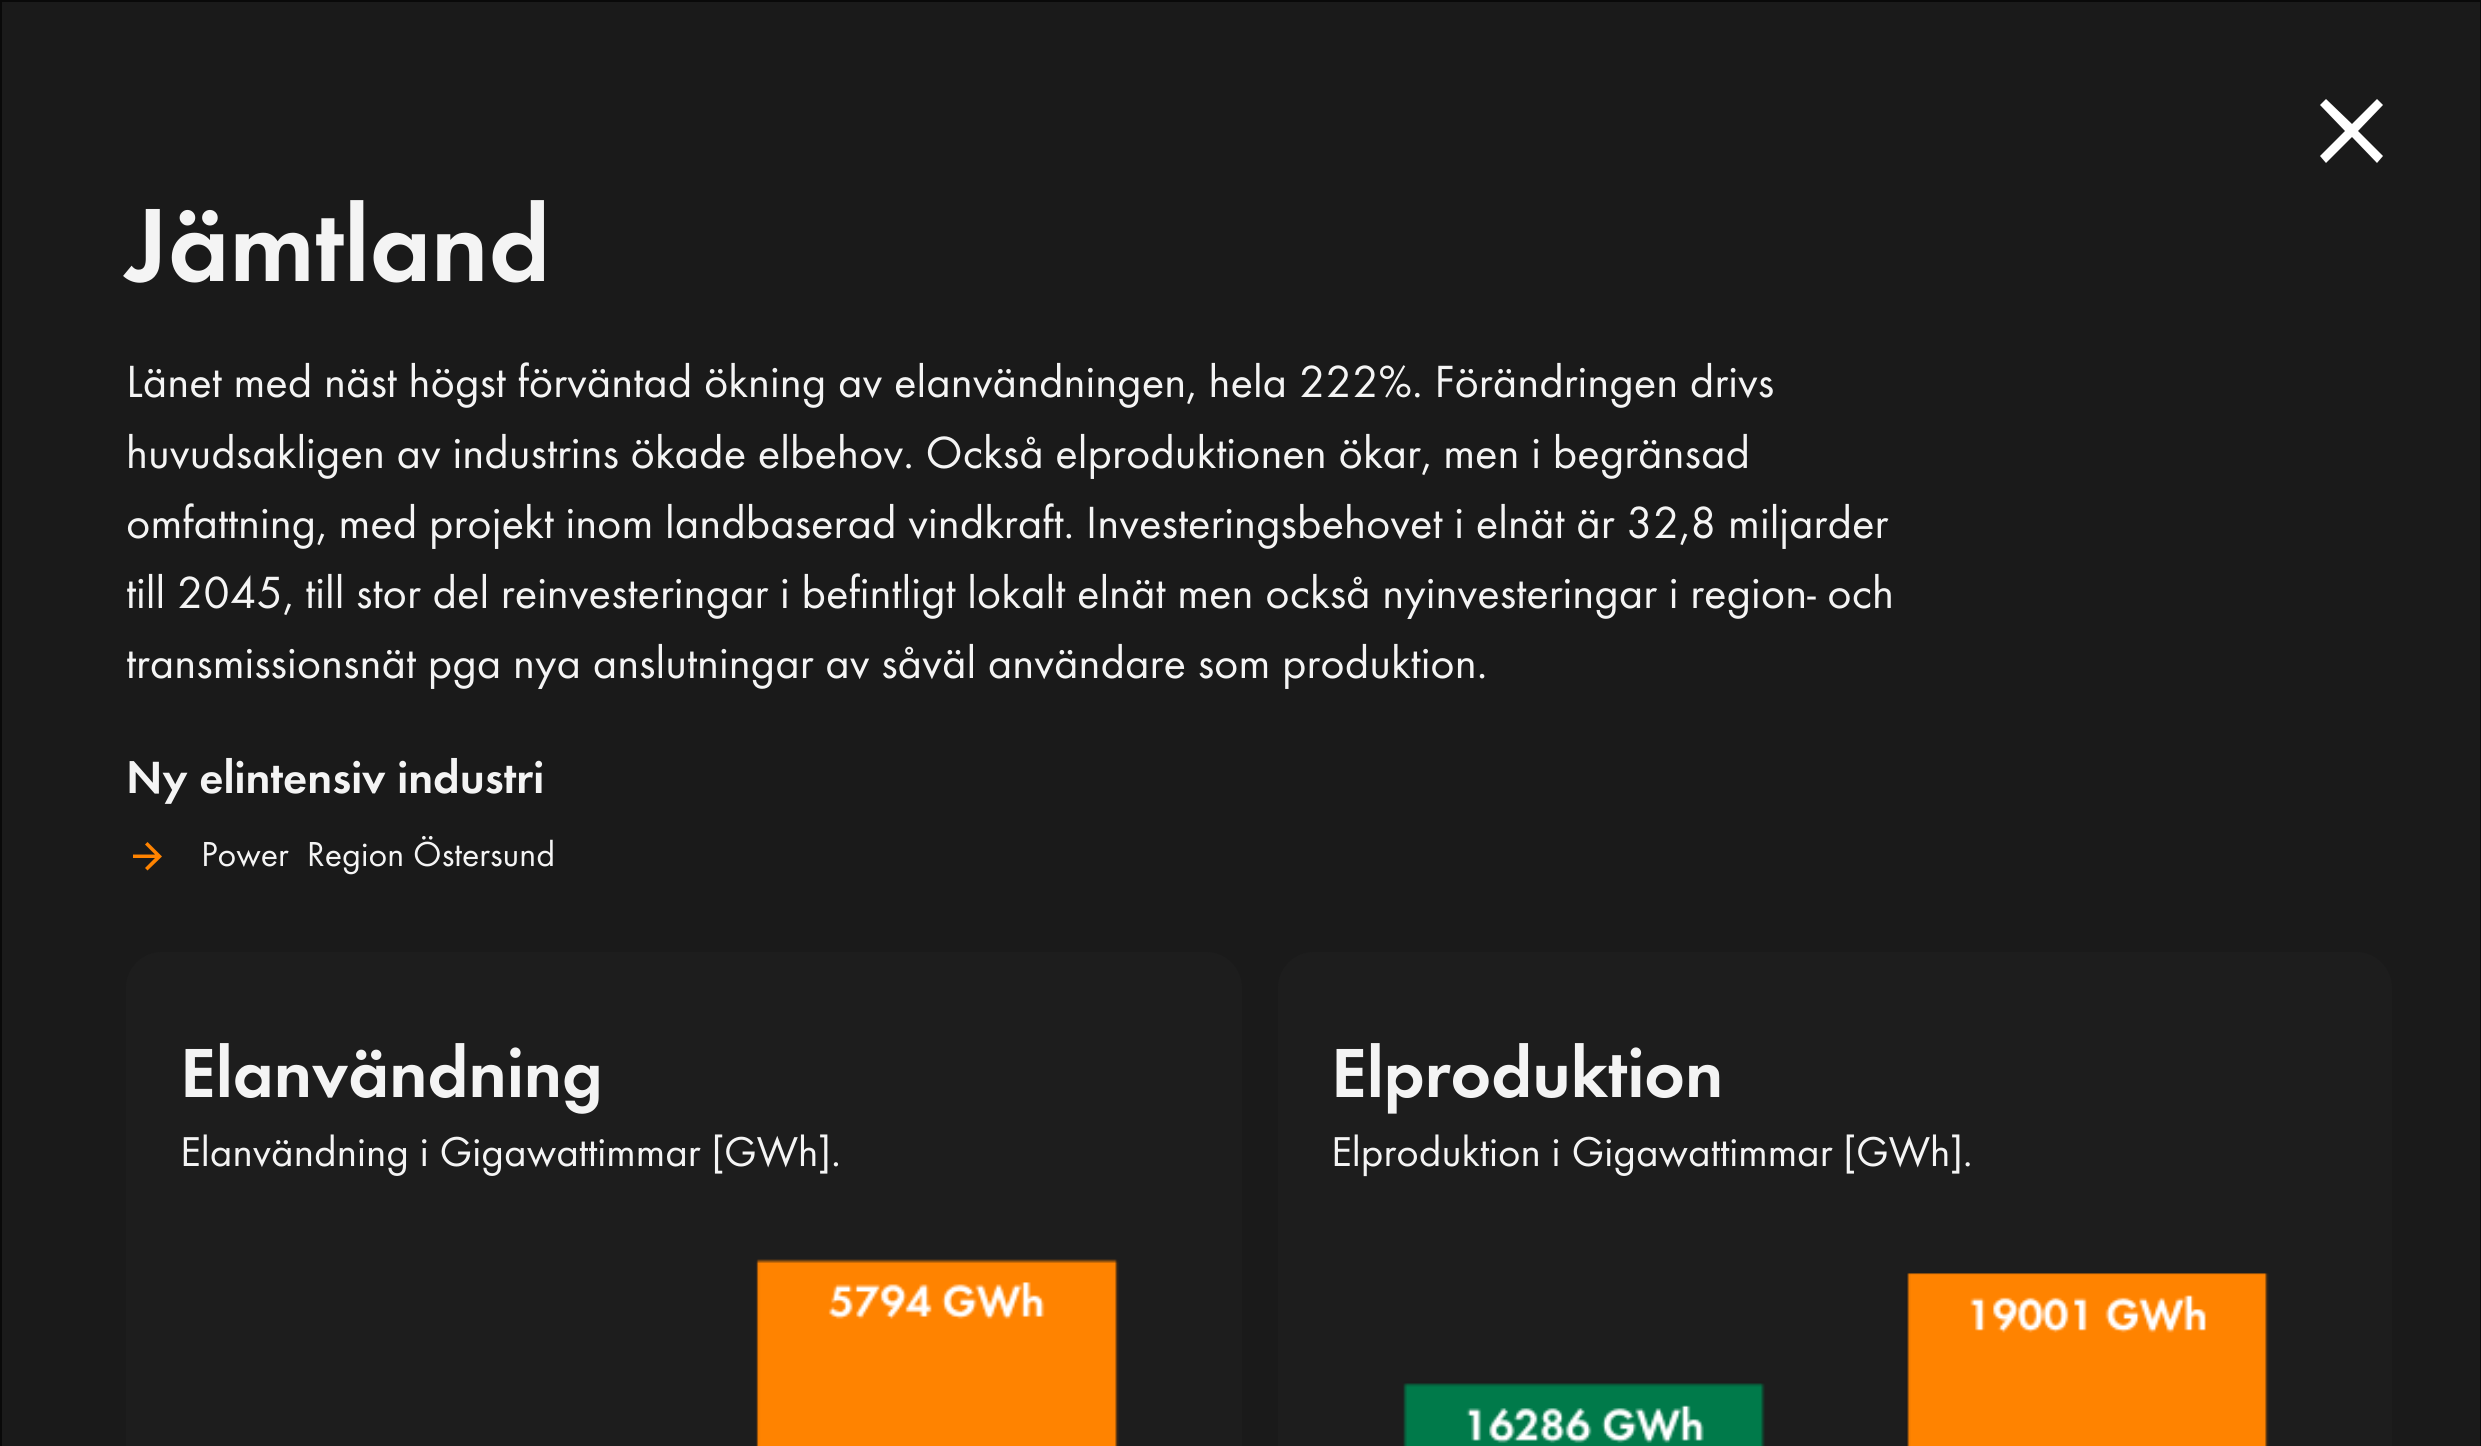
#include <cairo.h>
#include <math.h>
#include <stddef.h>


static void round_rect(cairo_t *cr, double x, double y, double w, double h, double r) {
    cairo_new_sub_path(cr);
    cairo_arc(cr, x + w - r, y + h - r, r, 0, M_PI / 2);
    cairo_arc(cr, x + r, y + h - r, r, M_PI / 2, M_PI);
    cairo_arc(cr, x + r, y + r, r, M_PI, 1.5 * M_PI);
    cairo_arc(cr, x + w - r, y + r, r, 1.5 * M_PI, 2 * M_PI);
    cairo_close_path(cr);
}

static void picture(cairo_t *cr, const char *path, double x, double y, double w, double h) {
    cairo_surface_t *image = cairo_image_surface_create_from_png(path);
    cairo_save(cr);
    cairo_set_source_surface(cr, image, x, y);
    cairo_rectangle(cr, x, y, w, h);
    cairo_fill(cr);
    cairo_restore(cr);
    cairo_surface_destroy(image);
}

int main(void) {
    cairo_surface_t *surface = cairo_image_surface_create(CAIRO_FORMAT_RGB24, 2481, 1446);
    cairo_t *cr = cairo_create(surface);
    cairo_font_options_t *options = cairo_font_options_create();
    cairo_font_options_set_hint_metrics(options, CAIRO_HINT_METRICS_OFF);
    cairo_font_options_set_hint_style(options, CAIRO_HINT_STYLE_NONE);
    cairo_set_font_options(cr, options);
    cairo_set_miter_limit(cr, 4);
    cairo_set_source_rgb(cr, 0.102, 0.102, 0.102);
    cairo_paint(cr);
    cairo_rectangle(cr, 1, 1, 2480, 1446);
    cairo_set_source_rgb(cr, 0.039, 0.039, 0.039);
    cairo_stroke(cr);
    cairo_set_source_rgb(cr, 1, 1, 1);
    cairo_set_fill_rule(cr, CAIRO_FILL_RULE_EVEN_ODD);
    cairo_new_path(cr);
    cairo_move_to(cr, 2345, 131);
    cairo_line_to(cr, 2320, 105);
    cairo_line_to(cr, 2326, 99);
    cairo_line_to(cr, 2352, 124);
    cairo_line_to(cr, 2377, 99);
    cairo_line_to(cr, 2383, 105);
    cairo_line_to(cr, 2358, 131);
    cairo_line_to(cr, 2383, 156);
    cairo_line_to(cr, 2377, 163);
    cairo_line_to(cr, 2352, 137);
    cairo_line_to(cr, 2326, 163);
    cairo_line_to(cr, 2320, 156);
    cairo_close_path(cr);
    cairo_fill(cr);
    cairo_select_font_face(cr, "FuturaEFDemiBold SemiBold", CAIRO_FONT_SLANT_NORMAL, CAIRO_FONT_WEIGHT_NORMAL);
    cairo_set_font_size(cr, 108);
    cairo_set_source_rgb(cr, 0.957, 0.957, 0.957);
    cairo_move_to(cr, 126, 281);
    cairo_show_text(cr, "Jämtland");
    cairo_select_font_face(cr, "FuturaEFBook", CAIRO_FONT_SLANT_NORMAL, CAIRO_FONT_WEIGHT_NORMAL);
    cairo_set_font_size(cr, 46.8);
    cairo_move_to(cr, 126, 397);
    cairo_show_text(cr, "Länet med näst högst förväntad ökning av elanvändningen, hela 222%. Förändringen drivs");
    cairo_move_to(cr, 126, 468);
    cairo_show_text(cr, "huvudsakligen av industrins ökade elbehov. Också elproduktionen ökar, men i begränsad");
    cairo_move_to(cr, 126, 538);
    cairo_show_text(cr, "omfattning, med projekt inom landbaserad vindkraft. Investeringsbehovet i elnät är 32,8 miljarder");
    cairo_move_to(cr, 126, 608);
    cairo_show_text(cr, "till 2045, till stor del reinvesteringar i befintligt lokalt elnät men också nyinvesteringar i region- och");
    cairo_move_to(cr, 126, 678);
    cairo_show_text(cr, "transmissionsnät pga nya anslutningar av såväl användare som produktion.");
    cairo_select_font_face(cr, "FuturaEFDemiBold SemiBold", CAIRO_FONT_SLANT_NORMAL, CAIRO_FONT_WEIGHT_NORMAL);
    cairo_move_to(cr, 126, 793);
    cairo_show_text(cr, "Ny elintensiv industri");
    cairo_set_source_rgb(cr, 1, 0.514, 0);
    cairo_set_fill_rule(cr, CAIRO_FILL_RULE_WINDING);
    cairo_new_path(cr);
    cairo_move_to(cr, 147.5, 842);
    cairo_line_to(cr, 145, 844.5);
    cairo_line_to(cr, 155, 854.5);
    cairo_line_to(cr, 133, 854.5);
    cairo_line_to(cr, 133, 858);
    cairo_line_to(cr, 155, 858);
    cairo_line_to(cr, 145, 868);
    cairo_line_to(cr, 147.5, 870.5);
    cairo_line_to(cr, 162, 856.5);
    cairo_close_path(cr);
    cairo_fill(cr);
    cairo_select_font_face(cr, "FuturaEFBook", CAIRO_FONT_SLANT_NORMAL, CAIRO_FONT_WEIGHT_NORMAL);
    cairo_set_font_size(cr, 36);
    cairo_set_source_rgb(cr, 0.957, 0.957, 0.957);
    cairo_move_to(cr, 201, 866);
    cairo_show_text(cr, "Power  Region Östersund");
    cairo_set_source_rgb(cr, 0.114, 0.114, 0.114);
    round_rect(cr, 126, 952, 1116, 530, 36);
    cairo_fill(cr);
    cairo_select_font_face(cr, "FuturaEFDemiBold SemiBold", CAIRO_FONT_SLANT_NORMAL, CAIRO_FONT_WEIGHT_NORMAL);
    cairo_set_font_size(cr, 72);
    cairo_set_source_rgb(cr, 0.957, 0.957, 0.957);
    cairo_move_to(cr, 180, 1097);
    cairo_show_text(cr, "Elanvändning");
    cairo_select_font_face(cr, "FuturaEFBook", CAIRO_FONT_SLANT_NORMAL, CAIRO_FONT_WEIGHT_NORMAL);
    cairo_set_font_size(cr, 43.25);
    cairo_move_to(cr, 180, 1166);
    cairo_show_text(cr, "Elanvändning i Gigawattimmar [GWh].");
    picture(cr, "img1.png", 756, 1259, 363, 187);
    cairo_set_source_rgb(cr, 0.114, 0.114, 0.114);
    round_rect(cr, 1278, 952, 1114, 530, 36);
    cairo_fill(cr);
    cairo_select_font_face(cr, "FuturaEFDemiBold SemiBold", CAIRO_FONT_SLANT_NORMAL, CAIRO_FONT_WEIGHT_NORMAL);
    cairo_set_font_size(cr, 72);
    cairo_set_source_rgb(cr, 0.957, 0.957, 0.957);
    cairo_move_to(cr, 1331, 1097);
    cairo_show_text(cr, "Elproduktion");
    cairo_select_font_face(cr, "FuturaEFBook", CAIRO_FONT_SLANT_NORMAL, CAIRO_FONT_WEIGHT_NORMAL);
    cairo_set_font_size(cr, 43.25);
    cairo_move_to(cr, 1331, 1166);
    cairo_show_text(cr, "Elproduktion i Gigawattimmar [GWh].");
    picture(cr, "img2.png", 1403, 1273, 866, 173);
    cairo_surface_write_to_png(surface, "page.png");
    cairo_font_options_destroy(options);
    cairo_destroy(cr);
    cairo_surface_destroy(surface);
    return 0;
}
